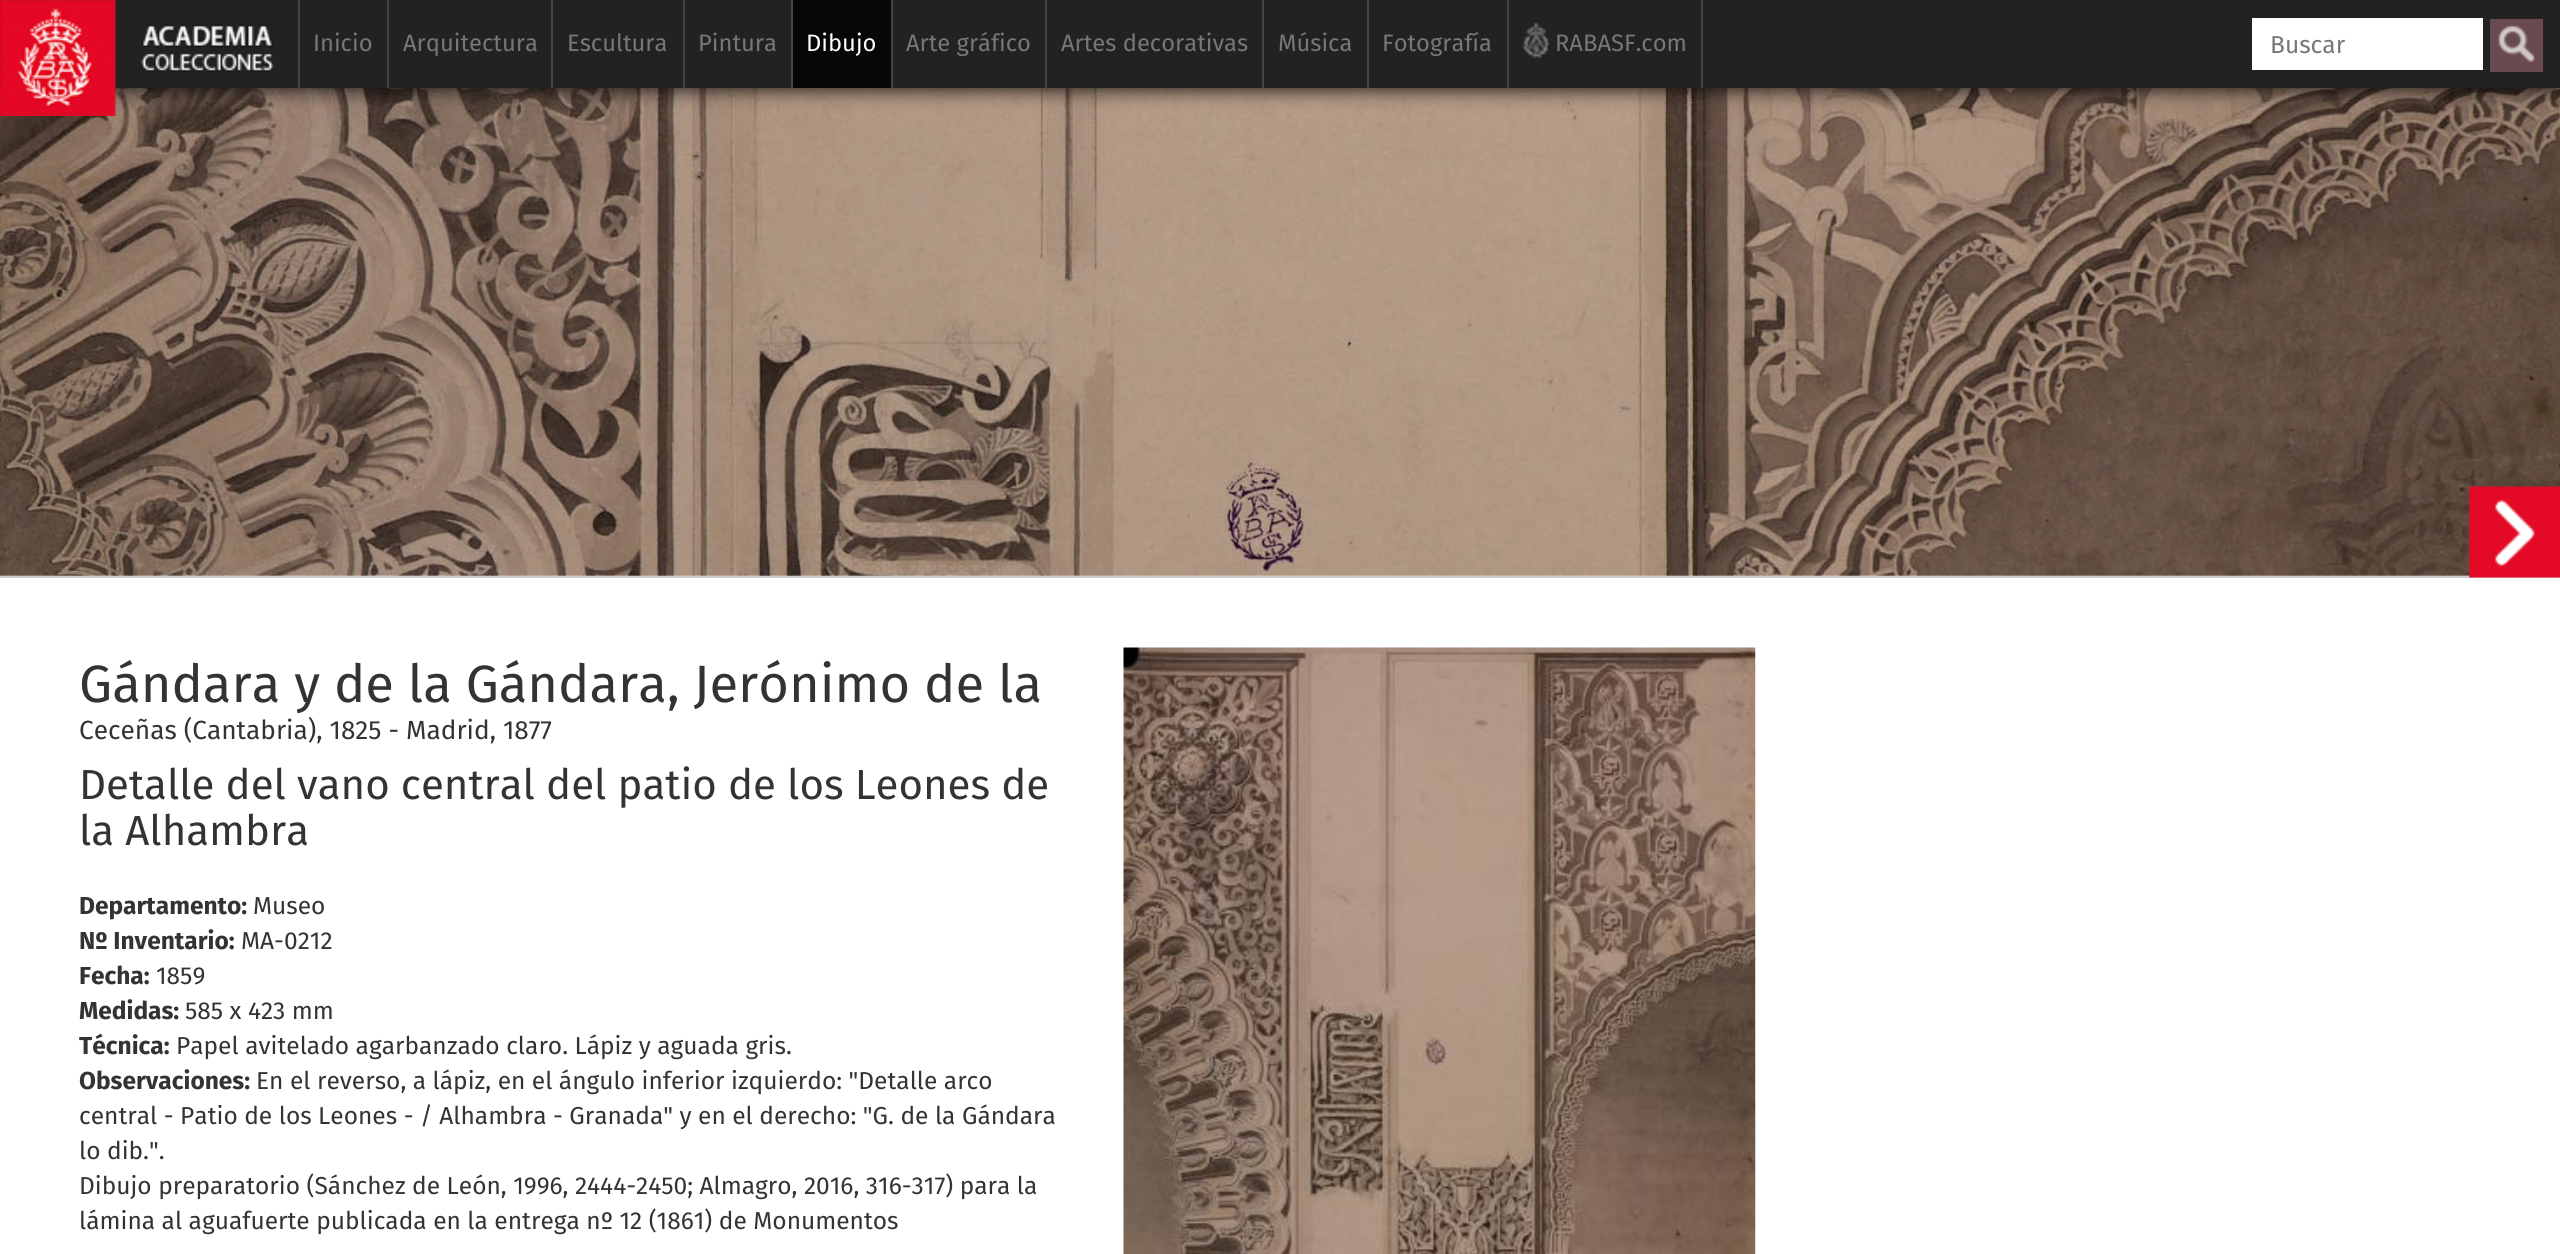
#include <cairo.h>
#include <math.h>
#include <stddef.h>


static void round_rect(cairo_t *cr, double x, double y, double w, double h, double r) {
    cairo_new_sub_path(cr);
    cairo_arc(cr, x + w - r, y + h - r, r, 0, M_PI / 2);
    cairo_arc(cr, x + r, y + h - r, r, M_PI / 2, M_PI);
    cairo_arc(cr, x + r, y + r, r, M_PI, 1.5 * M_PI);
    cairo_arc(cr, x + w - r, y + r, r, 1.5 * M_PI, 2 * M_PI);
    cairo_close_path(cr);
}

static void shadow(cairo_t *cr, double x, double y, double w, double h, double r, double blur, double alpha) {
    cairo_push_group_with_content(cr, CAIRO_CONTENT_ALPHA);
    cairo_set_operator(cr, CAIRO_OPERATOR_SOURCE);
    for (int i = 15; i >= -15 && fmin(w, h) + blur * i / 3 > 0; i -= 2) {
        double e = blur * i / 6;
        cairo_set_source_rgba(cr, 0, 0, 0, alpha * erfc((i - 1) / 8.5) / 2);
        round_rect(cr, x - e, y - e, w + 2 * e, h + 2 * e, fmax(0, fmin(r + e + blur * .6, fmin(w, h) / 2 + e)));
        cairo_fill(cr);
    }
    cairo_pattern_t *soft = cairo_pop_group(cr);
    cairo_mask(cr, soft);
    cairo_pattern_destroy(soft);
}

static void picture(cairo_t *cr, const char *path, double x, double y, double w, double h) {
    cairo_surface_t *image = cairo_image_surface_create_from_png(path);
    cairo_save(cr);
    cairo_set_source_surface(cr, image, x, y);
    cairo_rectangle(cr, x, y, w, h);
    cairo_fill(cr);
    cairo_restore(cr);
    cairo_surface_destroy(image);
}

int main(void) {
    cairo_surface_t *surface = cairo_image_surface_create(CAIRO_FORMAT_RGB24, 2560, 1254);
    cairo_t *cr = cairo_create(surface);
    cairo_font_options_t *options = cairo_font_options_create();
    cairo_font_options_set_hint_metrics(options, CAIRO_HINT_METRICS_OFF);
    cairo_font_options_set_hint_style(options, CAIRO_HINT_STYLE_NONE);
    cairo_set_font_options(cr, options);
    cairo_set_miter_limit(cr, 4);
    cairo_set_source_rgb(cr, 1, 1, 1);
    cairo_paint(cr);
    picture(cr, "img4.png", 0, 88, 2560, 488);
    cairo_set_source_rgb(cr, 0, 0, 0);
    shadow(cr, 0, 4, 2560, 87, 0, 9, 0.75);
    cairo_set_source_rgb(cr, 0.133, 0.133, 0.133);
    cairo_rectangle(cr, 0, 0, 2560, 88);
    cairo_fill(cr);
    picture(cr, "img1.png", 0, 0, 274, 116);
    cairo_set_source_rgb(cr, 0.267, 0.267, 0.267);
    cairo_rectangle(cr, 1701, 0, 2, 88);
    cairo_fill(cr);
    cairo_rectangle(cr, 298, 0, 2, 88);
    cairo_fill(cr);
    cairo_select_font_face(cr, "Fira Sans", CAIRO_FONT_SLANT_NORMAL, CAIRO_FONT_WEIGHT_NORMAL);
    cairo_set_font_size(cr, 23.75);
    cairo_set_source_rgb(cr, 0.467, 0.467, 0.467);
    cairo_move_to(cr, 313, 51);
    cairo_show_text(cr, "Inicio");
    cairo_set_source_rgb(cr, 0.267, 0.267, 0.267);
    cairo_rectangle(cr, 387, 0, 2, 88);
    cairo_fill(cr);
    cairo_set_source_rgb(cr, 0.467, 0.467, 0.467);
    cairo_move_to(cr, 403, 51);
    cairo_show_text(cr, "Arquitectura");
    cairo_set_source_rgb(cr, 0.267, 0.267, 0.267);
    cairo_rectangle(cr, 551, 0, 2, 88);
    cairo_fill(cr);
    cairo_set_source_rgb(cr, 0.467, 0.467, 0.467);
    cairo_move_to(cr, 567, 51);
    cairo_show_text(cr, "Escultura");
    cairo_set_source_rgb(cr, 0.267, 0.267, 0.267);
    cairo_rectangle(cr, 683, 0, 2, 88);
    cairo_fill(cr);
    cairo_set_source_rgb(cr, 0.467, 0.467, 0.467);
    cairo_move_to(cr, 698, 51);
    cairo_show_text(cr, "Pintura");
    cairo_set_source_rgb(cr, 0.267, 0.267, 0.267);
    cairo_rectangle(cr, 791, 0, 2, 88);
    cairo_fill(cr);
    cairo_set_source_rgb(cr, 0.031, 0.031, 0.031);
    cairo_rectangle(cr, 793, 0, 98, 88);
    cairo_fill(cr);
    cairo_set_source_rgb(cr, 1, 1, 1);
    cairo_move_to(cr, 806, 51);
    cairo_show_text(cr, "Dibujo");
    cairo_set_source_rgb(cr, 0.267, 0.267, 0.267);
    cairo_rectangle(cr, 891, 0, 2, 88);
    cairo_fill(cr);
    cairo_set_source_rgb(cr, 0.467, 0.467, 0.467);
    cairo_move_to(cr, 906, 51);
    cairo_show_text(cr, "Arte gráfico");
    cairo_set_source_rgb(cr, 0.267, 0.267, 0.267);
    cairo_rectangle(cr, 1045, 0, 2, 88);
    cairo_fill(cr);
    cairo_set_source_rgb(cr, 0.467, 0.467, 0.467);
    cairo_move_to(cr, 1061, 51);
    cairo_show_text(cr, "Artes decorativas");
    cairo_set_source_rgb(cr, 0.267, 0.267, 0.267);
    cairo_rectangle(cr, 1262, 0, 2, 88);
    cairo_fill(cr);
    cairo_set_source_rgb(cr, 0.467, 0.467, 0.467);
    cairo_move_to(cr, 1278, 51);
    cairo_show_text(cr, "Música");
    cairo_set_source_rgb(cr, 0.267, 0.267, 0.267);
    cairo_rectangle(cr, 1367, 0, 2, 88);
    cairo_fill(cr);
    cairo_set_source_rgb(cr, 0.467, 0.467, 0.467);
    cairo_move_to(cr, 1382, 51);
    cairo_show_text(cr, "Fotografía");
    cairo_set_source_rgb(cr, 0.267, 0.267, 0.267);
    cairo_rectangle(cr, 1507, 0, 2, 88);
    cairo_fill(cr);
    picture(cr, "img2.png", 1522, 22, 27, 37);
    cairo_set_source_rgb(cr, 0.467, 0.467, 0.467);
    cairo_move_to(cr, 1555, 51);
    cairo_show_text(cr, "RABASF.com");
    cairo_set_source_rgb(cr, 1, 1, 1);
    cairo_rectangle(cr, 2252, 18, 231, 52);
    cairo_fill(cr);
    cairo_set_font_size(cr, 24.5);
    cairo_set_source_rgb(cr, 0.467, 0.467, 0.467);
    cairo_move_to(cr, 2270, 53);
    cairo_show_text(cr, "Buscar");
    cairo_set_source_rgb(cr, 0.412, 0.29, 0.306);
    cairo_rectangle(cr, 2490, 19, 53, 53);
    cairo_fill(cr);
    picture(cr, "img3.png", 2498, 25, 37, 38);
    cairo_set_source_rgb(cr, 0.8, 0.8, 0.8);
    cairo_rectangle(cr, 0, 576, 2560, 2);
    cairo_fill(cr);
    picture(cr, "img5.png", 2469, 486, 91, 92);
    cairo_set_font_size(cr, 52.5);
    cairo_set_source_rgb(cr, 0.2, 0.2, 0.2);
    cairo_move_to(cr, 79, 702);
    cairo_show_text(cr, "Gándara y de la Gándara, Jerónimo de la");
    cairo_set_font_size(cr, 26.25);
    cairo_move_to(cr, 79, 739);
    cairo_show_text(cr, "Ceceñas (Cantabria), 1825 - Madrid, 1877");
    cairo_set_font_size(cr, 42);
    cairo_move_to(cr, 79, 799);
    cairo_show_text(cr, "Detalle del vano central del patio de los Leones de");
    cairo_move_to(cr, 79, 845);
    cairo_show_text(cr, "la Alhambra");
    cairo_select_font_face(cr, "Fira Sans", CAIRO_FONT_SLANT_NORMAL, CAIRO_FONT_WEIGHT_BOLD);
    cairo_set_font_size(cr, 24.5);
    cairo_move_to(cr, 79, 914);
    cairo_show_text(cr, "Departamento:");
    cairo_select_font_face(cr, "Fira Sans", CAIRO_FONT_SLANT_NORMAL, CAIRO_FONT_WEIGHT_NORMAL);
    cairo_move_to(cr, 253, 914);
    cairo_show_text(cr, "Museo");
    cairo_select_font_face(cr, "Fira Sans", CAIRO_FONT_SLANT_NORMAL, CAIRO_FONT_WEIGHT_BOLD);
    cairo_move_to(cr, 79, 949);
    cairo_show_text(cr, "Nº Inventario:");
    cairo_select_font_face(cr, "Fira Sans", CAIRO_FONT_SLANT_NORMAL, CAIRO_FONT_WEIGHT_NORMAL);
    cairo_move_to(cr, 241, 949);
    cairo_show_text(cr, "MA-0212");
    cairo_select_font_face(cr, "Fira Sans", CAIRO_FONT_SLANT_NORMAL, CAIRO_FONT_WEIGHT_BOLD);
    cairo_move_to(cr, 79, 984);
    cairo_show_text(cr, "Fecha:");
    cairo_select_font_face(cr, "Fira Sans", CAIRO_FONT_SLANT_NORMAL, CAIRO_FONT_WEIGHT_NORMAL);
    cairo_move_to(cr, 156, 984);
    cairo_show_text(cr, "1859");
    cairo_select_font_face(cr, "Fira Sans", CAIRO_FONT_SLANT_NORMAL, CAIRO_FONT_WEIGHT_BOLD);
    cairo_move_to(cr, 79, 1019);
    cairo_show_text(cr, "Medidas:");
    cairo_select_font_face(cr, "Fira Sans", CAIRO_FONT_SLANT_NORMAL, CAIRO_FONT_WEIGHT_NORMAL);
    cairo_move_to(cr, 185, 1019);
    cairo_show_text(cr, "585 x 423 mm");
    cairo_select_font_face(cr, "Fira Sans", CAIRO_FONT_SLANT_NORMAL, CAIRO_FONT_WEIGHT_BOLD);
    cairo_move_to(cr, 79, 1054);
    cairo_show_text(cr, "Técnica:");
    cairo_select_font_face(cr, "Fira Sans", CAIRO_FONT_SLANT_NORMAL, CAIRO_FONT_WEIGHT_NORMAL);
    cairo_move_to(cr, 176, 1054);
    cairo_show_text(cr, "Papel avitelado agarbanzado claro. Lápiz y aguada gris.");
    cairo_select_font_face(cr, "Fira Sans", CAIRO_FONT_SLANT_NORMAL, CAIRO_FONT_WEIGHT_BOLD);
    cairo_move_to(cr, 79, 1089);
    cairo_show_text(cr, "Observaciones:");
    cairo_select_font_face(cr, "Fira Sans", CAIRO_FONT_SLANT_NORMAL, CAIRO_FONT_WEIGHT_NORMAL);
    cairo_move_to(cr, 256, 1089);
    cairo_show_text(cr, "En el reverso, a lápiz, en el ángulo inferior izquierdo: \"Detalle arco");
    cairo_move_to(cr, 79, 1124);
    cairo_show_text(cr, "central - Patio de los Leones - / Alhambra - Granada\" y en el derecho: \"G. de la Gándara");
    cairo_move_to(cr, 79, 1159);
    cairo_show_text(cr, "lo dib.\".");
    cairo_move_to(cr, 79, 1194);
    cairo_show_text(cr, "Dibujo preparatorio (Sánchez de León, 1996, 2444-2450; Almagro, 2016, 316-317) para la");
    cairo_move_to(cr, 79, 1229);
    cairo_show_text(cr, "lámina al aguafuerte publicada en la entrega nº 12 (1861) de Monumentos");
    picture(cr, "img6.png", 1123, 647, 633, 607);
    cairo_surface_write_to_png(surface, "page.png");
    cairo_font_options_destroy(options);
    cairo_destroy(cr);
    cairo_surface_destroy(surface);
    return 0;
}
